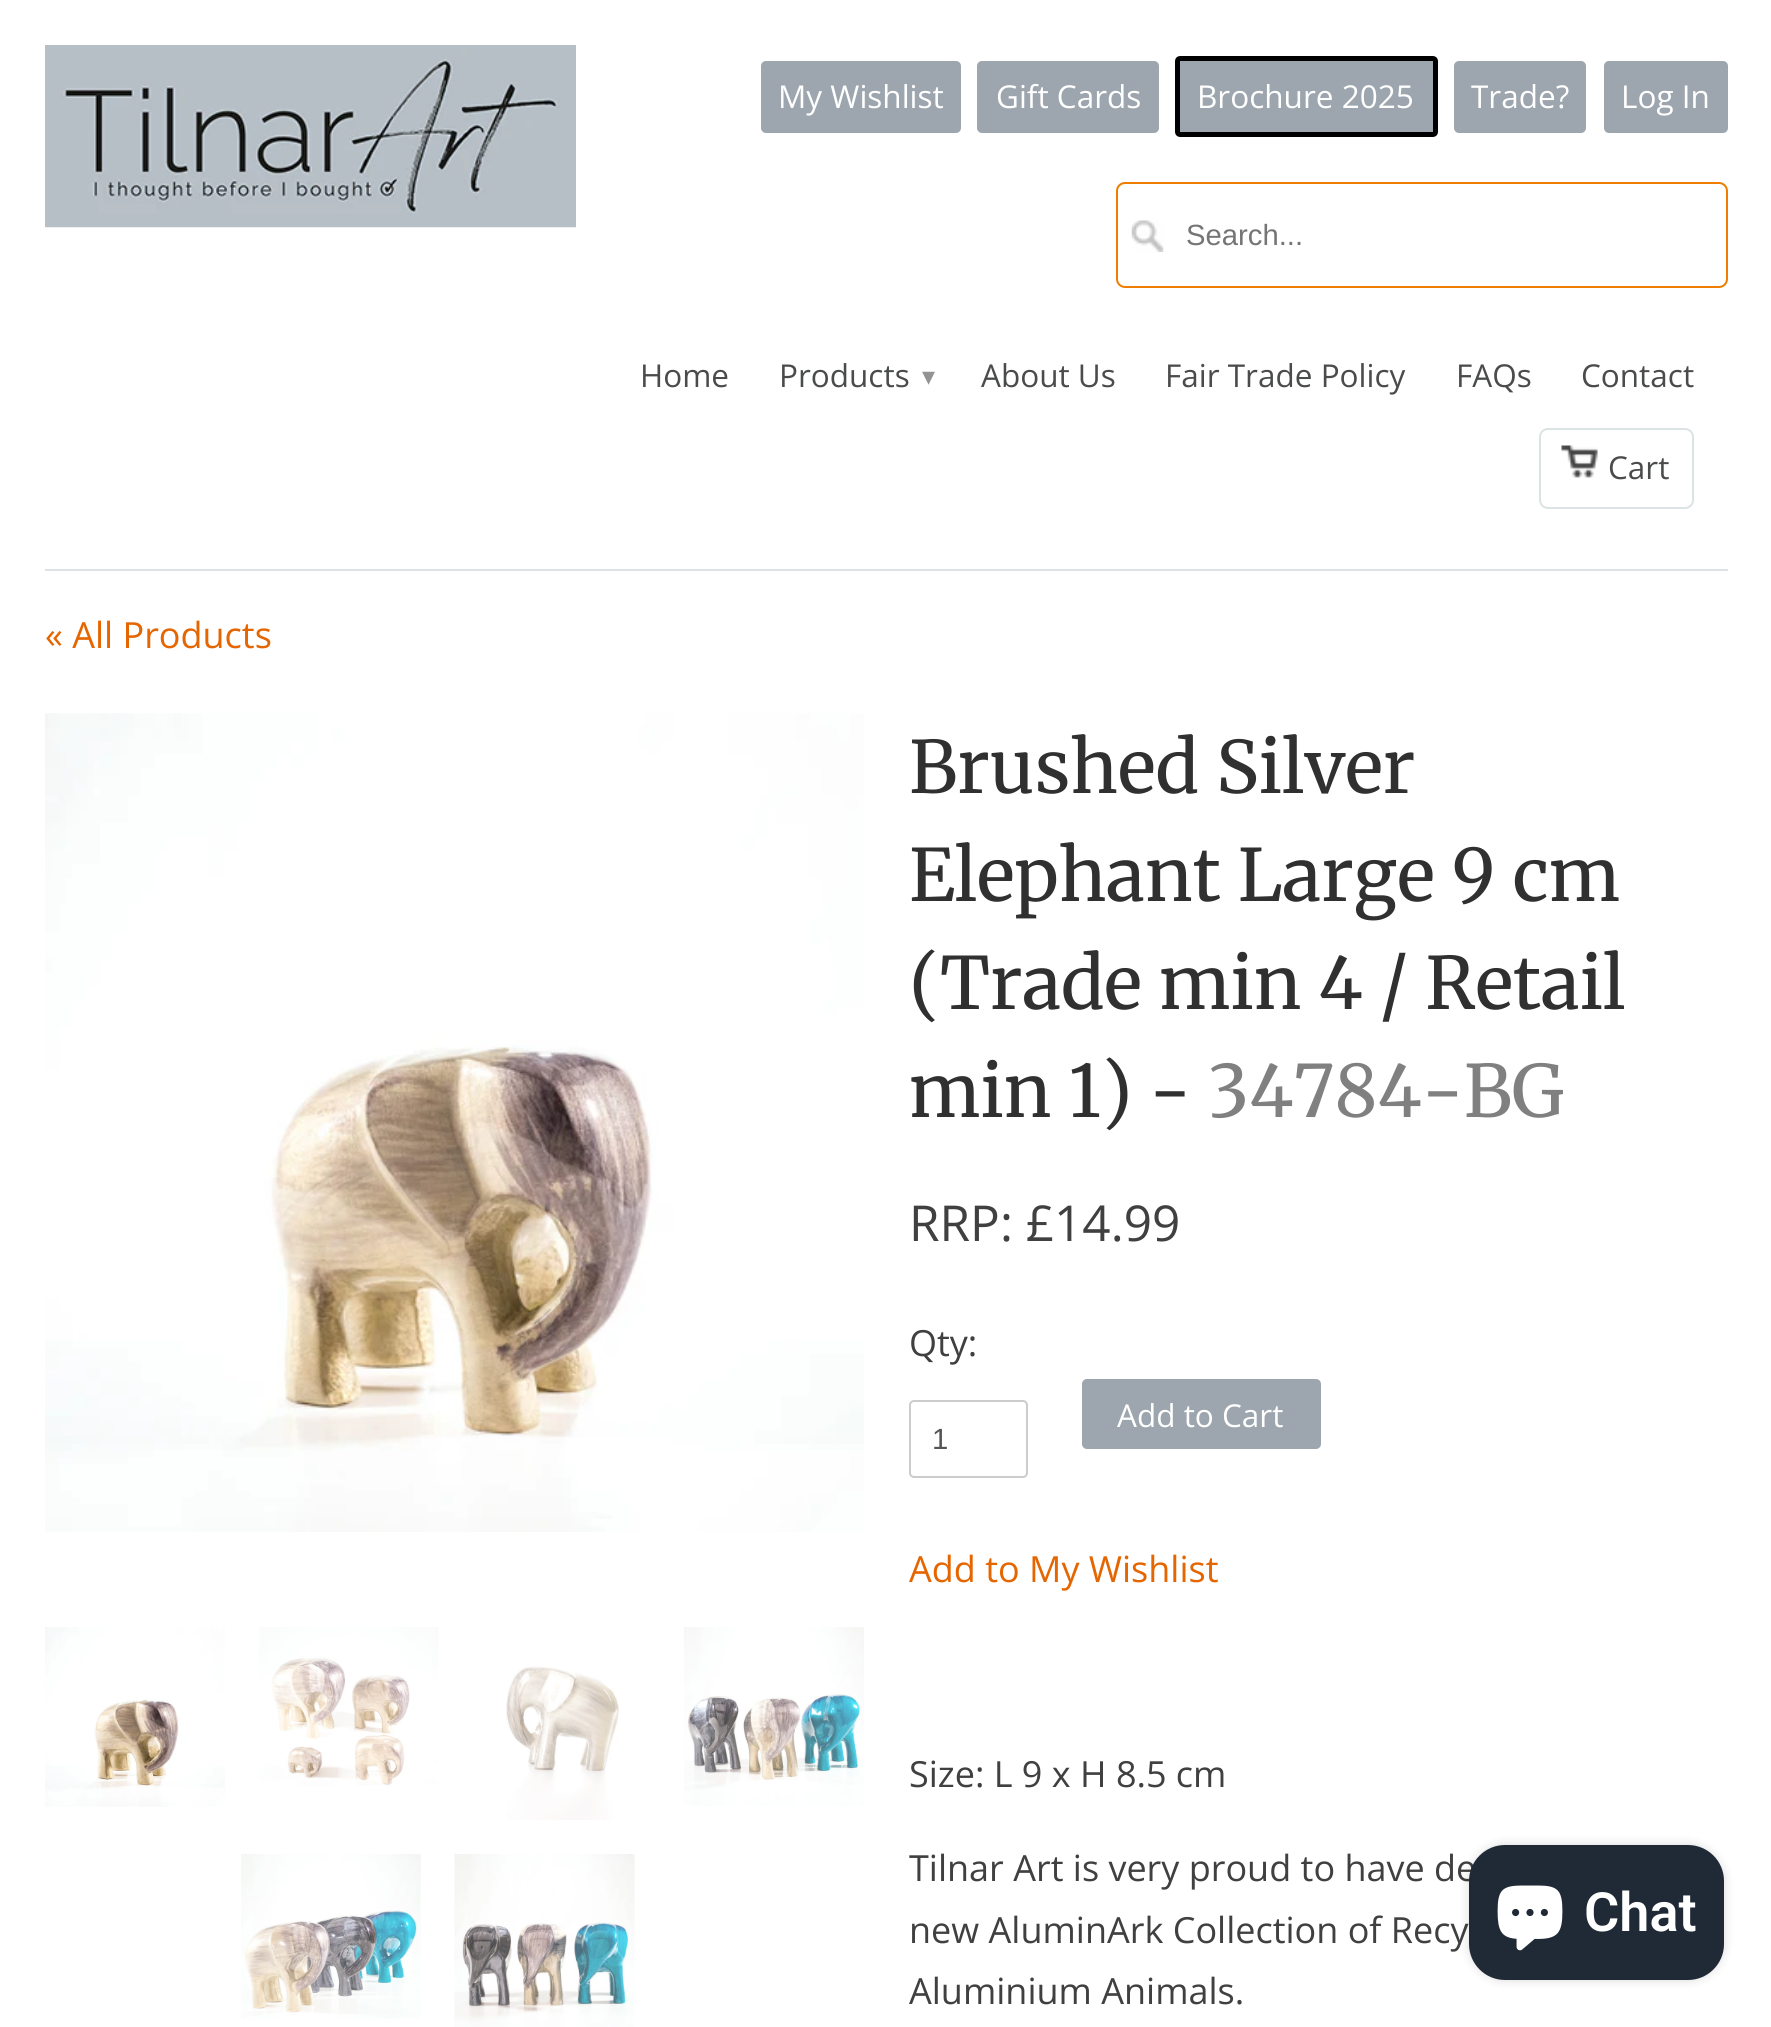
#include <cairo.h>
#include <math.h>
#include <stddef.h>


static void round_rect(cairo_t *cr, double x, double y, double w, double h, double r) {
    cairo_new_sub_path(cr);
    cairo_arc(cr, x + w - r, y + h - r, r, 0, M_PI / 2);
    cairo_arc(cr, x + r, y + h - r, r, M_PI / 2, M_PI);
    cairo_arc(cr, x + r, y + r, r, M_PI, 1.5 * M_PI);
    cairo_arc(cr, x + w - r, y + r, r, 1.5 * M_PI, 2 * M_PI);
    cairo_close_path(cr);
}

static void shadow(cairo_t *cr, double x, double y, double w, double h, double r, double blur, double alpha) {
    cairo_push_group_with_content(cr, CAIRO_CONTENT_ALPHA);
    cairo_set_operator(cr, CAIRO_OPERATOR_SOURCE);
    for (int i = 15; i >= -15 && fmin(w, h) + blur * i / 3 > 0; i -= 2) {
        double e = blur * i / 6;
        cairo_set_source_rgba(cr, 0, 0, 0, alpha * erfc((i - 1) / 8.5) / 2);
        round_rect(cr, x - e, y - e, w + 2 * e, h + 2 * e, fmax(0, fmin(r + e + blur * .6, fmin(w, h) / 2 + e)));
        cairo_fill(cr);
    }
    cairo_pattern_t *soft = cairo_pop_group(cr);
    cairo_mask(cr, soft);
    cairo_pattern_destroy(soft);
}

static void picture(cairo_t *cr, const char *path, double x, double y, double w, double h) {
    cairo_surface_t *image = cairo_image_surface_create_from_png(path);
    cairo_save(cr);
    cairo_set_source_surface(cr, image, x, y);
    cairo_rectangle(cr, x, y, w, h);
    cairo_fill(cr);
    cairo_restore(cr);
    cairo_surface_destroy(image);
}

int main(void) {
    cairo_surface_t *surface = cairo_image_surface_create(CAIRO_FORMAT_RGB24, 1771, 2027);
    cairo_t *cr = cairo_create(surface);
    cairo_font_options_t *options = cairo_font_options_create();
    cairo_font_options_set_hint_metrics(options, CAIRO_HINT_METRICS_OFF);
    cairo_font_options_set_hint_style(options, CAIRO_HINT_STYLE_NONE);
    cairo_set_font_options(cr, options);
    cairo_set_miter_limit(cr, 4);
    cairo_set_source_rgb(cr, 1, 1, 1);
    cairo_paint(cr);
    picture(cr, "img1.png", 45, 45, 531, 183);
    cairo_set_source_rgb(cr, 0.616, 0.651, 0.682);
    round_rect(cr, 761, 61, 200, 72, 5);
    cairo_fill(cr);
    cairo_select_font_face(cr, "Open Sans", CAIRO_FONT_SLANT_NORMAL, CAIRO_FONT_WEIGHT_NORMAL);
    cairo_set_font_size(cr, 31.5);
    cairo_set_source_rgb(cr, 1, 1, 1);
    cairo_move_to(cr, 778, 108);
    cairo_show_text(cr, "My Wishlist");
    cairo_set_source_rgb(cr, 0.616, 0.651, 0.682);
    round_rect(cr, 977, 61, 182, 72, 5);
    cairo_fill(cr);
    cairo_set_source_rgb(cr, 1, 1, 1);
    cairo_move_to(cr, 996, 108);
    cairo_show_text(cr, "Gift Cards");
    cairo_set_source_rgb(cr, 0.616, 0.651, 0.682);
    round_rect(cr, 1177.5, 58.5, 258, 76, 2.5);
    cairo_fill_preserve(cr);
    cairo_set_source_rgb(cr, 0, 0, 0);
    cairo_set_line_width(cr, 5);
    cairo_stroke(cr);
    cairo_set_source_rgb(cr, 1, 1, 1);
    cairo_move_to(cr, 1197, 108);
    cairo_show_text(cr, "Brochure 2025");
    cairo_set_source_rgb(cr, 0.616, 0.651, 0.682);
    round_rect(cr, 1454, 61, 132, 72, 5);
    cairo_fill(cr);
    cairo_set_source_rgb(cr, 1, 1, 1);
    cairo_move_to(cr, 1471, 108);
    cairo_show_text(cr, "Trade?");
    cairo_set_source_rgb(cr, 0.616, 0.651, 0.682);
    round_rect(cr, 1604, 61, 124, 72, 5);
    cairo_fill(cr);
    cairo_set_source_rgb(cr, 1, 1, 1);
    cairo_move_to(cr, 1621, 108);
    cairo_show_text(cr, "Log In");
    picture(cr, "img2.png", 1131, 220, 33, 32);
    round_rect(cr, 1117, 183, 610, 104, 8);
    cairo_set_source_rgb(cr, 0.933, 0.49, 0);
    cairo_set_line_width(cr, 2);
    cairo_stroke(cr);
    cairo_select_font_face(cr, "Liberation Sans", CAIRO_FONT_SLANT_NORMAL, CAIRO_FONT_WEIGHT_NORMAL);
    cairo_set_font_size(cr, 29.25);
    cairo_set_source_rgb(cr, 0.459, 0.459, 0.459);
    cairo_move_to(cr, 1186, 245);
    cairo_show_text(cr, "Search...");
    cairo_select_font_face(cr, "Open Sans", CAIRO_FONT_SLANT_NORMAL, CAIRO_FONT_WEIGHT_NORMAL);
    cairo_set_font_size(cr, 31.5);
    cairo_set_source_rgb(cr, 0.29, 0.294, 0.294);
    cairo_move_to(cr, 640, 387);
    cairo_show_text(cr, "Home");
    cairo_move_to(cr, 779, 387);
    cairo_show_text(cr, "Products");
    cairo_select_font_face(cr, "DejaVu Sans", CAIRO_FONT_SLANT_NORMAL, CAIRO_FONT_WEIGHT_NORMAL);
    cairo_set_font_size(cr, 26);
    cairo_set_source_rgb(cr, 0.573, 0.576, 0.576);
    cairo_move_to(cr, 922, 385);
    cairo_show_text(cr, "▾");
    cairo_select_font_face(cr, "Open Sans", CAIRO_FONT_SLANT_NORMAL, CAIRO_FONT_WEIGHT_NORMAL);
    cairo_set_font_size(cr, 31.5);
    cairo_set_source_rgb(cr, 0.29, 0.294, 0.294);
    cairo_move_to(cr, 981, 387);
    cairo_show_text(cr, "About Us");
    cairo_move_to(cr, 1165, 387);
    cairo_show_text(cr, "Fair Trade Policy");
    cairo_move_to(cr, 1456, 387);
    cairo_show_text(cr, "FAQs");
    cairo_move_to(cr, 1581, 387);
    cairo_show_text(cr, "Contact");
    picture(cr, "img3.png", 1561, 445, 37, 33);
    round_rect(cr, 1540, 429, 153, 79, 8);
    cairo_set_source_rgb(cr, 0.859, 0.89, 0.898);
    cairo_stroke(cr);
    cairo_set_source_rgb(cr, 0.29, 0.294, 0.294);
    cairo_move_to(cr, 1608, 479);
    cairo_show_text(cr, "Cart");
    cairo_set_source_rgb(cr, 0.859, 0.89, 0.898);
    cairo_rectangle(cr, 45, 569, 1683, 2);
    cairo_fill(cr);
    cairo_set_font_size(cr, 36);
    cairo_set_source_rgb(cr, 0.898, 0.4, 0);
    cairo_move_to(cr, 45, 648);
    cairo_show_text(cr, "« All Products");
    picture(cr, "img4.png", 45, 713, 819, 819);
    picture(cr, "img5.png", 45, 1627, 180, 180);
    picture(cr, "img6.png", 259, 1627, 180, 159);
    picture(cr, "img7.png", 506, 1666, 113, 154);
    picture(cr, "img8.png", 684, 1627, 180, 179);
    picture(cr, "img9.png", 241, 1854, 180, 165);
    picture(cr, "img10.png", 454, 1854, 181, 173);
    cairo_select_font_face(cr, "Merriweather", CAIRO_FONT_SLANT_NORMAL, CAIRO_FONT_WEIGHT_NORMAL);
    cairo_set_font_size(cr, 72);
    cairo_set_source_rgb(cr, 0.188, 0.188, 0.188);
    cairo_move_to(cr, 909, 793);
    cairo_show_text(cr, "Brushed Silver");
    cairo_move_to(cr, 909, 901);
    cairo_show_text(cr, "Elephant Large 9 cm");
    cairo_move_to(cr, 909, 1009);
    cairo_show_text(cr, "(Trade min 4 / Retail");
    cairo_move_to(cr, 909, 1117);
    cairo_show_text(cr, "min 1) -");
    cairo_set_source_rgb(cr, 0.502, 0.502, 0.502);
    cairo_move_to(cr, 1208, 1117);
    cairo_show_text(cr, "34784-BG");
    cairo_select_font_face(cr, "Open Sans", CAIRO_FONT_SLANT_NORMAL, CAIRO_FONT_WEIGHT_NORMAL);
    cairo_set_font_size(cr, 49.5);
    cairo_set_source_rgb(cr, 0.251, 0.251, 0.251);
    cairo_move_to(cr, 909, 1241);
    cairo_show_text(cr, "RRP: £14.99");
    cairo_set_font_size(cr, 36);
    cairo_move_to(cr, 909, 1356);
    cairo_show_text(cr, "Qty:");
    cairo_set_source_rgb(cr, 0.616, 0.651, 0.682);
    round_rect(cr, 1082, 1379, 239, 70, 5);
    cairo_fill(cr);
    cairo_set_font_size(cr, 31.5);
    cairo_set_source_rgb(cr, 1, 1, 1);
    cairo_move_to(cr, 1117, 1427);
    cairo_show_text(cr, "Add to Cart");
    round_rect(cr, 910, 1401, 117, 76, 4);
    cairo_set_source_rgb(cr, 0.8, 0.8, 0.8);
    cairo_stroke(cr);
    cairo_select_font_face(cr, "Liberation Sans", CAIRO_FONT_SLANT_NORMAL, CAIRO_FONT_WEIGHT_NORMAL);
    cairo_set_font_size(cr, 29.25);
    cairo_set_source_rgb(cr, 0.333, 0.333, 0.333);
    cairo_move_to(cr, 932, 1449);
    cairo_show_text(cr, "1");
    cairo_select_font_face(cr, "Open Sans", CAIRO_FONT_SLANT_NORMAL, CAIRO_FONT_WEIGHT_NORMAL);
    cairo_set_font_size(cr, 36);
    cairo_set_source_rgb(cr, 0.898, 0.4, 0);
    cairo_move_to(cr, 909, 1582);
    cairo_show_text(cr, "Add to My Wishlist");
    cairo_set_source_rgb(cr, 0.251, 0.251, 0.251);
    cairo_move_to(cr, 909, 1787);
    cairo_show_text(cr, "Size: L 9 x H 8.5 cm");
    cairo_move_to(cr, 909, 1881);
    cairo_show_text(cr, "Tilnar Art is very proud to have de");
    cairo_move_to(cr, 909, 1943);
    cairo_show_text(cr, "new AluminArk Collection of Recy");
    cairo_move_to(cr, 909, 2004);
    cairo_show_text(cr, "Aluminium Animals.");
    cairo_set_source_rgb(cr, 0, 0, 0);
    shadow(cr, 1469, 1845, 255, 135, 36, 5.5, 0.15);
    cairo_set_source_rgb(cr, 0.125, 0.165, 0.212);
    round_rect(cr, 1469, 1845, 255, 135, 36);
    cairo_fill(cr);
    picture(cr, "img11.png", 1497, 1885, 66, 66);
    cairo_select_font_face(cr, "Roboto SemiBold", CAIRO_FONT_SLANT_NORMAL, CAIRO_FONT_WEIGHT_NORMAL);
    cairo_set_font_size(cr, 54);
    cairo_set_source_rgb(cr, 1, 1, 1);
    cairo_move_to(cr, 1584, 1931);
    cairo_show_text(cr, "Chat");
    cairo_surface_write_to_png(surface, "page.png");
    cairo_font_options_destroy(options);
    cairo_destroy(cr);
    cairo_surface_destroy(surface);
    return 0;
}
